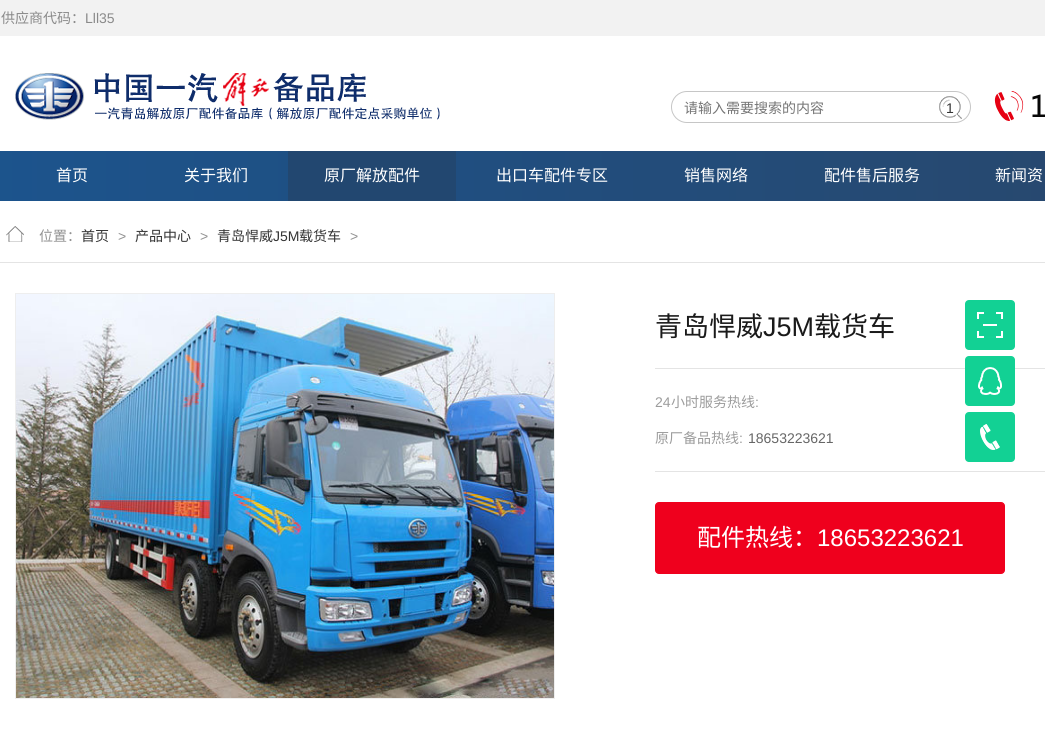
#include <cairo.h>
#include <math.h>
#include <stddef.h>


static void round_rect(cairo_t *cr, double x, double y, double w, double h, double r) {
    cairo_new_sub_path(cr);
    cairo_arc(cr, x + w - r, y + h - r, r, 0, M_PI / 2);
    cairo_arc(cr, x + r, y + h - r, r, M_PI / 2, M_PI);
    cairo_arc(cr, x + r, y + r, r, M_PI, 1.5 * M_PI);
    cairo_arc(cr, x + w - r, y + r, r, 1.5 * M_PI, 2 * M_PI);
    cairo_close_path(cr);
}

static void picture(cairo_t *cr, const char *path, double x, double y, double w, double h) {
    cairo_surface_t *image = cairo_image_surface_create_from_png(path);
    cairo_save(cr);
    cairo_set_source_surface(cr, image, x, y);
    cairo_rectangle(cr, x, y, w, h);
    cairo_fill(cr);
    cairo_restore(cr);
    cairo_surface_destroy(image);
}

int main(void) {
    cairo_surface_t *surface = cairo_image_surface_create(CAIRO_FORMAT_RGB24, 1045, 750);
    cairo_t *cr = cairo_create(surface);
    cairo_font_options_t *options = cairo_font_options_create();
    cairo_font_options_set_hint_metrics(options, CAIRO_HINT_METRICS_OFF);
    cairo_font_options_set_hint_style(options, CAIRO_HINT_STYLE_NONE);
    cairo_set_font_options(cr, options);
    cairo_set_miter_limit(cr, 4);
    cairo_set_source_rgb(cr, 1, 1, 1);
    cairo_paint(cr);
    cairo_set_source_rgb(cr, 0.949, 0.949, 0.949);
    cairo_rectangle(cr, 0, 0, 1045, 36);
    cairo_fill(cr);
    cairo_select_font_face(cr, "Noto Sans CJK SC", CAIRO_FONT_SLANT_NORMAL, CAIRO_FONT_WEIGHT_NORMAL);
    cairo_set_font_size(cr, 14);
    cairo_set_source_rgb(cr, 0.541, 0.541, 0.541);
    cairo_move_to(cr, 1, 23);
    cairo_show_text(cr, "供应商代码：");
    cairo_select_font_face(cr, "Liberation Sans", CAIRO_FONT_SLANT_NORMAL, CAIRO_FONT_WEIGHT_NORMAL);
    cairo_move_to(cr, 85, 23);
    cairo_show_text(cr, "Lll35");
    picture(cr, "img1.png", 15, 73, 425, 47);
    picture(cr, "img2.png", 939, 96, 23, 23);
    round_rect(cr, 671.5, 91.5, 299, 31, 15.5);
    cairo_set_source_rgb(cr, 0.776, 0.776, 0.776);
    cairo_set_line_width(cr, 1);
    cairo_stroke(cr);
    cairo_select_font_face(cr, "Noto Sans CJK SC", CAIRO_FONT_SLANT_NORMAL, CAIRO_FONT_WEIGHT_NORMAL);
    cairo_set_source_rgb(cr, 0.459, 0.459, 0.459);
    cairo_move_to(cr, 684, 113);
    cairo_show_text(cr, "请输入需要搜索的内容");
    cairo_select_font_face(cr, "Liberation Sans", CAIRO_FONT_SLANT_NORMAL, CAIRO_FONT_WEIGHT_NORMAL);
    cairo_set_source_rgb(cr, 0.2, 0.2, 0.2);
    cairo_move_to(cr, 946, 113);
    cairo_show_text(cr, "1");
    picture(cr, "img3.png", 994, 91, 51, 30);
    picture(cr, "img4.png", 0, 151, 1045, 50);
    cairo_select_font_face(cr, "Noto Sans CJK SC", CAIRO_FONT_SLANT_NORMAL, CAIRO_FONT_WEIGHT_NORMAL);
    cairo_set_font_size(cr, 16);
    cairo_set_source_rgb(cr, 1, 1, 1);
    cairo_move_to(cr, 56, 181);
    cairo_show_text(cr, "首页");
    cairo_move_to(cr, 184, 181);
    cairo_show_text(cr, "关于我们");
    cairo_set_source_rgb(cr, 0.133, 0.278, 0.439);
    cairo_rectangle(cr, 288, 151, 168, 50);
    cairo_fill(cr);
    cairo_set_source_rgb(cr, 1, 1, 1);
    cairo_move_to(cr, 324, 181);
    cairo_show_text(cr, "原厂解放配件");
    cairo_move_to(cr, 496, 181);
    cairo_show_text(cr, "出口车配件专区");
    cairo_move_to(cr, 684, 181);
    cairo_show_text(cr, "销售网络");
    cairo_move_to(cr, 824, 181);
    cairo_show_text(cr, "配件售后服务");
    cairo_move_to(cr, 995, 181);
    cairo_show_text(cr, "新闻资");
    cairo_set_source_rgb(cr, 0.894, 0.894, 0.894);
    cairo_rectangle(cr, 0, 262, 1045, 1);
    cairo_fill(cr);
    picture(cr, "img5.png", 6, 226, 18, 16);
    cairo_set_font_size(cr, 14);
    cairo_set_source_rgb(cr, 0.573, 0.573, 0.573);
    cairo_move_to(cr, 39, 241);
    cairo_show_text(cr, "位置：");
    cairo_set_source_rgb(cr, 0.2, 0.2, 0.2);
    cairo_move_to(cr, 81, 241);
    cairo_show_text(cr, "首页");
    cairo_select_font_face(cr, "Liberation Sans", CAIRO_FONT_SLANT_NORMAL, CAIRO_FONT_WEIGHT_NORMAL);
    cairo_set_source_rgb(cr, 0.573, 0.573, 0.573);
    cairo_move_to(cr, 118, 241);
    cairo_show_text(cr, ">");
    cairo_select_font_face(cr, "Noto Sans CJK SC", CAIRO_FONT_SLANT_NORMAL, CAIRO_FONT_WEIGHT_NORMAL);
    cairo_set_source_rgb(cr, 0.2, 0.2, 0.2);
    cairo_move_to(cr, 135, 241);
    cairo_show_text(cr, "产品中心");
    cairo_select_font_face(cr, "Liberation Sans", CAIRO_FONT_SLANT_NORMAL, CAIRO_FONT_WEIGHT_NORMAL);
    cairo_set_source_rgb(cr, 0.573, 0.573, 0.573);
    cairo_move_to(cr, 200, 241);
    cairo_show_text(cr, ">");
    cairo_select_font_face(cr, "Noto Sans CJK SC", CAIRO_FONT_SLANT_NORMAL, CAIRO_FONT_WEIGHT_NORMAL);
    cairo_set_source_rgb(cr, 0.2, 0.2, 0.2);
    cairo_move_to(cr, 217, 241);
    cairo_show_text(cr, "青岛悍威");
    cairo_select_font_face(cr, "Liberation Sans", CAIRO_FONT_SLANT_NORMAL, CAIRO_FONT_WEIGHT_NORMAL);
    cairo_move_to(cr, 273, 241);
    cairo_show_text(cr, "J5M");
    cairo_select_font_face(cr, "Noto Sans CJK SC", CAIRO_FONT_SLANT_NORMAL, CAIRO_FONT_WEIGHT_NORMAL);
    cairo_move_to(cr, 299, 241);
    cairo_show_text(cr, "载货车");
    cairo_select_font_face(cr, "Liberation Sans", CAIRO_FONT_SLANT_NORMAL, CAIRO_FONT_WEIGHT_NORMAL);
    cairo_set_source_rgb(cr, 0.573, 0.573, 0.573);
    cairo_move_to(cr, 350, 241);
    cairo_show_text(cr, ">");
    cairo_rectangle(cr, 15.5, 293.5, 539, 405);
    cairo_set_source_rgb(cr, 0.933, 0.933, 0.933);
    cairo_stroke(cr);
    picture(cr, "img6.png", 16, 294, 538, 404);
    cairo_set_source_rgb(cr, 0.894, 0.894, 0.894);
    cairo_rectangle(cr, 655, 368, 390, 1);
    cairo_fill(cr);
    cairo_select_font_face(cr, "Noto Sans CJK SC", CAIRO_FONT_SLANT_NORMAL, CAIRO_FONT_WEIGHT_NORMAL);
    cairo_set_font_size(cr, 27);
    cairo_set_source_rgb(cr, 0.102, 0.102, 0.102);
    cairo_move_to(cr, 655, 336);
    cairo_show_text(cr, "青岛悍威");
    cairo_select_font_face(cr, "Liberation Sans", CAIRO_FONT_SLANT_NORMAL, CAIRO_FONT_WEIGHT_NORMAL);
    cairo_move_to(cr, 763, 336);
    cairo_show_text(cr, "J5M");
    cairo_select_font_face(cr, "Noto Sans CJK SC", CAIRO_FONT_SLANT_NORMAL, CAIRO_FONT_WEIGHT_NORMAL);
    cairo_move_to(cr, 814, 336);
    cairo_show_text(cr, "载货车");
    cairo_set_source_rgb(cr, 0.894, 0.894, 0.894);
    cairo_rectangle(cr, 655, 471, 390, 1);
    cairo_fill(cr);
    cairo_select_font_face(cr, "Liberation Sans", CAIRO_FONT_SLANT_NORMAL, CAIRO_FONT_WEIGHT_NORMAL);
    cairo_set_font_size(cr, 14);
    cairo_set_source_rgb(cr, 0.612, 0.612, 0.612);
    cairo_move_to(cr, 655, 407);
    cairo_show_text(cr, "24");
    cairo_select_font_face(cr, "Noto Sans CJK SC", CAIRO_FONT_SLANT_NORMAL, CAIRO_FONT_WEIGHT_NORMAL);
    cairo_move_to(cr, 671, 407);
    cairo_show_text(cr, "小时服务热线");
    cairo_select_font_face(cr, "Liberation Sans", CAIRO_FONT_SLANT_NORMAL, CAIRO_FONT_WEIGHT_NORMAL);
    cairo_move_to(cr, 755, 407);
    cairo_show_text(cr, ":");
    cairo_select_font_face(cr, "Noto Sans CJK SC", CAIRO_FONT_SLANT_NORMAL, CAIRO_FONT_WEIGHT_NORMAL);
    cairo_move_to(cr, 655, 443);
    cairo_show_text(cr, "原厂备品热线");
    cairo_select_font_face(cr, "Liberation Sans", CAIRO_FONT_SLANT_NORMAL, CAIRO_FONT_WEIGHT_NORMAL);
    cairo_move_to(cr, 739, 443);
    cairo_show_text(cr, ":");
    cairo_set_source_rgb(cr, 0.4, 0.4, 0.4);
    cairo_move_to(cr, 748, 443);
    cairo_show_text(cr, "18653223621");
    cairo_set_source_rgb(cr, 0.937, 0, 0.114);
    round_rect(cr, 655.5, 502.5, 349, 71, 3.5);
    cairo_fill_preserve(cr);
    cairo_stroke(cr);
    cairo_select_font_face(cr, "Noto Sans CJK SC", CAIRO_FONT_SLANT_NORMAL, CAIRO_FONT_WEIGHT_NORMAL);
    cairo_set_font_size(cr, 24);
    cairo_set_source_rgb(cr, 1, 1, 1);
    cairo_move_to(cr, 697, 546);
    cairo_show_text(cr, "配件热线：");
    cairo_select_font_face(cr, "Liberation Sans", CAIRO_FONT_SLANT_NORMAL, CAIRO_FONT_WEIGHT_NORMAL);
    cairo_move_to(cr, 817, 546);
    cairo_show_text(cr, "18653223621");
    picture(cr, "img7.png", 965, 300, 50, 50);
    picture(cr, "img8.png", 965, 356, 50, 50);
    picture(cr, "img9.png", 965, 412, 50, 50);
    cairo_surface_write_to_png(surface, "page.png");
    cairo_font_options_destroy(options);
    cairo_destroy(cr);
    cairo_surface_destroy(surface);
    return 0;
}
